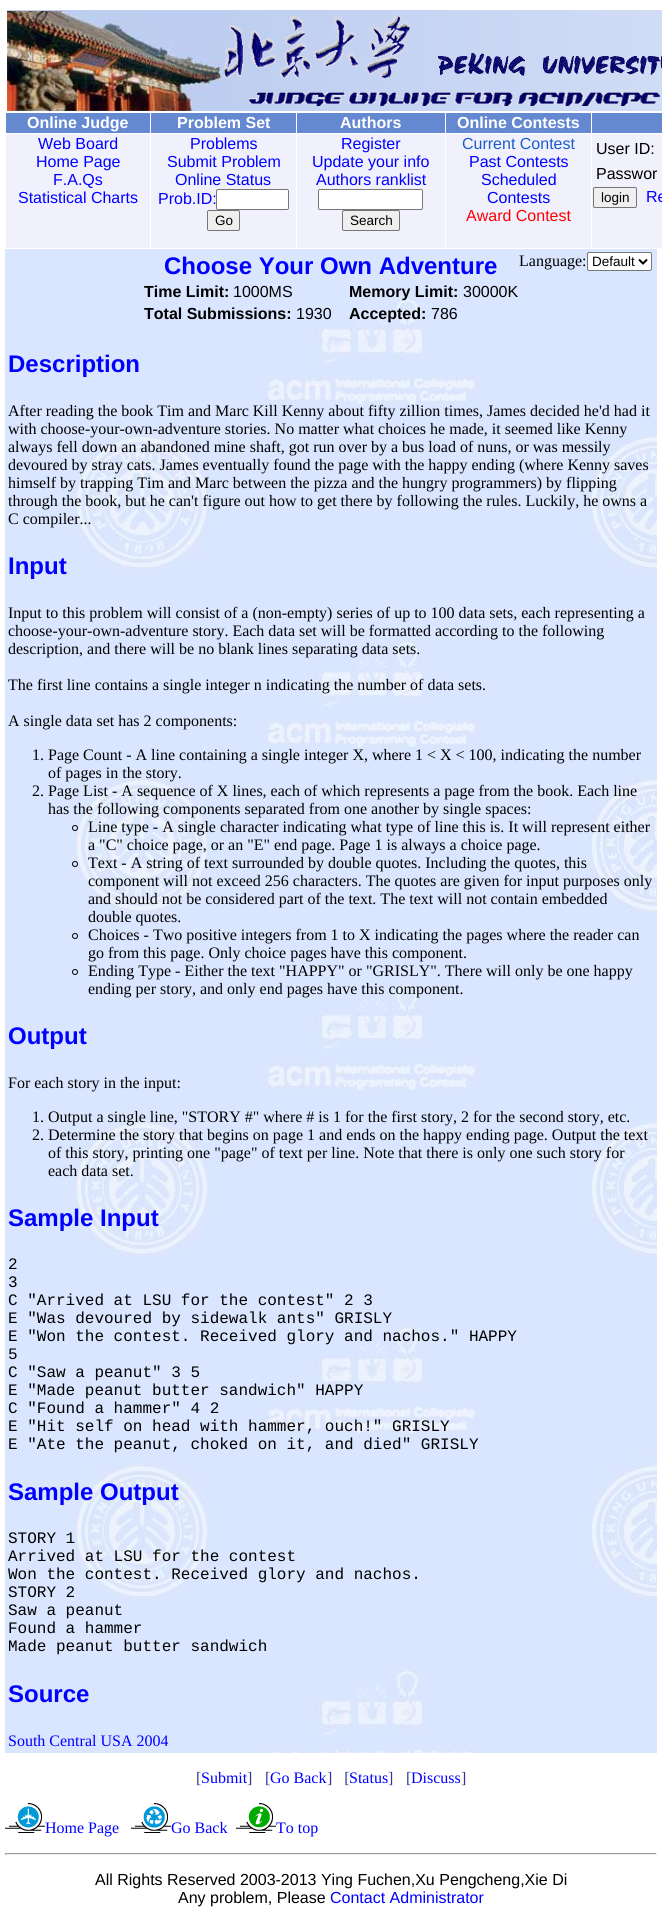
#include <cairo.h>
#include <math.h>
#include <stddef.h>


static void round_rect(cairo_t *cr, double x, double y, double w, double h, double r) {
    cairo_new_sub_path(cr);
    cairo_arc(cr, x + w - r, y + h - r, r, 0, M_PI / 2);
    cairo_arc(cr, x + r, y + h - r, r, M_PI / 2, M_PI);
    cairo_arc(cr, x + r, y + r, r, M_PI, 1.5 * M_PI);
    cairo_arc(cr, x + w - r, y + r, r, 1.5 * M_PI, 2 * M_PI);
    cairo_close_path(cr);
}

static void picture(cairo_t *cr, const char *path, double x, double y, double w, double h) {
    cairo_surface_t *image = cairo_image_surface_create_from_png(path);
    cairo_save(cr);
    cairo_set_source_surface(cr, image, x, y);
    cairo_rectangle(cr, x, y, w, h);
    cairo_fill(cr);
    cairo_restore(cr);
    cairo_surface_destroy(image);
}

int main(void) {
    cairo_surface_t *surface = cairo_image_surface_create(CAIRO_FORMAT_RGB24, 662, 1926);
    cairo_t *cr = cairo_create(surface);
    cairo_font_options_t *options = cairo_font_options_create();
    cairo_font_options_set_hint_metrics(options, CAIRO_HINT_METRICS_OFF);
    cairo_font_options_set_hint_style(options, CAIRO_HINT_STYLE_NONE);
    cairo_set_font_options(cr, options);
    cairo_set_miter_limit(cr, 4);
    cairo_set_source_rgb(cr, 1, 1, 1);
    cairo_paint(cr);
    cairo_set_source_rgb(cr, 0.745, 0.808, 0.945);
    cairo_rectangle(cr, 7, 10, 214, 1);
    cairo_fill(cr);
    picture(cr, "img1.png", 7, 11, 214, 100);
    picture(cr, "img2.png", 221, 10, 441, 101);
    picture(cr, "img3.png", 224, 16, 438, 90);
    cairo_set_source_rgb(cr, 0.396, 0.537, 0.82);
    cairo_rectangle(cr, 6, 113, 656, 20);
    cairo_fill(cr);
    cairo_select_font_face(cr, "Liberation Sans", CAIRO_FONT_SLANT_NORMAL, CAIRO_FONT_WEIGHT_BOLD);
    cairo_set_font_size(cr, 16);
    cairo_set_source_rgb(cr, 1, 1, 1);
    cairo_move_to(cr, 27, 128);
    cairo_show_text(cr, "Online Judge");
    cairo_move_to(cr, 177, 128);
    cairo_show_text(cr, "Problem Set");
    cairo_move_to(cr, 340, 128);
    cairo_show_text(cr, "Authors");
    cairo_move_to(cr, 457, 128);
    cairo_show_text(cr, "Online Contests");
    cairo_set_source_rgb(cr, 0.945, 0.945, 0.992);
    cairo_rectangle(cr, 6, 134, 656, 114);
    cairo_fill(cr);
    cairo_select_font_face(cr, "Liberation Sans", CAIRO_FONT_SLANT_NORMAL, CAIRO_FONT_WEIGHT_NORMAL);
    cairo_set_source_rgb(cr, 0, 0, 1);
    cairo_move_to(cr, 38, 149);
    cairo_show_text(cr, "Web Board");
    cairo_move_to(cr, 36, 167);
    cairo_show_text(cr, "Home Page");
    cairo_move_to(cr, 53, 185);
    cairo_show_text(cr, "F.A.Qs");
    cairo_move_to(cr, 18, 203);
    cairo_show_text(cr, "Statistical Charts");
    cairo_set_source_rgb(cr, 1, 1, 1);
    cairo_rectangle(cr, 150, 112, 1, 137);
    cairo_fill(cr);
    cairo_set_source_rgb(cr, 0, 0, 1);
    cairo_move_to(cr, 190, 149);
    cairo_show_text(cr, "Problems");
    cairo_move_to(cr, 167, 167);
    cairo_show_text(cr, "Submit Problem");
    cairo_move_to(cr, 175, 185);
    cairo_show_text(cr, "Online Status");
    cairo_move_to(cr, 158, 204);
    cairo_show_text(cr, "Prob.ID:");
    cairo_set_source_rgb(cr, 1, 1, 1);
    round_rect(cr, 216.5, 189.5, 72, 20, 1.5);
    cairo_fill_preserve(cr);
    cairo_set_source_rgb(cr, 0.463, 0.463, 0.463);
    cairo_set_line_width(cr, 1);
    cairo_stroke(cr);
    cairo_set_source_rgb(cr, 0.937, 0.937, 0.937);
    round_rect(cr, 207.5, 210.5, 32, 20, 1.5);
    cairo_fill_preserve(cr);
    cairo_set_source_rgb(cr, 0.463, 0.463, 0.463);
    cairo_stroke(cr);
    cairo_set_font_size(cr, 13.5);
    cairo_set_source_rgb(cr, 0, 0, 0);
    cairo_move_to(cr, 215, 225);
    cairo_show_text(cr, "Go");
    cairo_set_source_rgb(cr, 1, 1, 1);
    cairo_rectangle(cr, 296, 112, 1, 137);
    cairo_fill(cr);
    cairo_set_font_size(cr, 16);
    cairo_set_source_rgb(cr, 0, 0, 1);
    cairo_move_to(cr, 341, 149);
    cairo_show_text(cr, "Register");
    cairo_move_to(cr, 312, 167);
    cairo_show_text(cr, "Update your info");
    cairo_move_to(cr, 316, 185);
    cairo_show_text(cr, "Authors ranklist");
    cairo_set_source_rgb(cr, 1, 1, 1);
    round_rect(cr, 318.5, 189.5, 104, 20, 1.5);
    cairo_fill_preserve(cr);
    cairo_set_source_rgb(cr, 0.463, 0.463, 0.463);
    cairo_stroke(cr);
    cairo_set_source_rgb(cr, 0.937, 0.937, 0.937);
    round_rect(cr, 342.5, 210.5, 57, 20, 1.5);
    cairo_fill_preserve(cr);
    cairo_set_source_rgb(cr, 0.463, 0.463, 0.463);
    cairo_stroke(cr);
    cairo_set_font_size(cr, 13.5);
    cairo_set_source_rgb(cr, 0, 0, 0);
    cairo_move_to(cr, 350, 225);
    cairo_show_text(cr, "Search");
    cairo_set_source_rgb(cr, 1, 1, 1);
    cairo_rectangle(cr, 445, 112, 1, 137);
    cairo_fill(cr);
    cairo_set_font_size(cr, 16);
    cairo_set_source_rgb(cr, 0.102, 0.361, 0.784);
    cairo_move_to(cr, 462, 149);
    cairo_show_text(cr, "Current Contest");
    cairo_set_source_rgb(cr, 0, 0, 1);
    cairo_move_to(cr, 469, 167);
    cairo_show_text(cr, "Past Contests");
    cairo_move_to(cr, 481, 185);
    cairo_show_text(cr, "Scheduled");
    cairo_move_to(cr, 487, 203);
    cairo_show_text(cr, "Contests");
    cairo_set_source_rgb(cr, 1, 0, 0);
    cairo_move_to(cr, 466, 221);
    cairo_show_text(cr, "Award Contest");
    cairo_set_source_rgb(cr, 1, 1, 1);
    cairo_rectangle(cr, 591, 112, 1, 137);
    cairo_fill(cr);
    cairo_set_source_rgb(cr, 0, 0, 0);
    cairo_move_to(cr, 596, 154);
    cairo_show_text(cr, "User ID:");
    cairo_move_to(cr, 596, 179);
    cairo_show_text(cr, "Passwor");
    cairo_set_source_rgb(cr, 0.937, 0.937, 0.937);
    round_rect(cr, 593.5, 187.5, 43, 20, 1.5);
    cairo_fill_preserve(cr);
    cairo_set_source_rgb(cr, 0.463, 0.463, 0.463);
    cairo_stroke(cr);
    cairo_set_font_size(cr, 13.5);
    cairo_set_source_rgb(cr, 0, 0, 0);
    cairo_move_to(cr, 601, 202);
    cairo_show_text(cr, "login");
    cairo_set_font_size(cr, 16);
    cairo_set_source_rgb(cr, 0, 0, 1);
    cairo_move_to(cr, 646, 202);
    cairo_show_text(cr, "Re");
    picture(cr, "img4.png", 5, 249, 652, 1504);
    cairo_select_font_face(cr, "Liberation Sans", CAIRO_FONT_SLANT_NORMAL, CAIRO_FONT_WEIGHT_BOLD);
    cairo_set_font_size(cr, 24);
    cairo_move_to(cr, 164, 274);
    cairo_show_text(cr, "Choose Your Own Adventure");
    cairo_select_font_face(cr, "Liberation Serif", CAIRO_FONT_SLANT_NORMAL, CAIRO_FONT_WEIGHT_NORMAL);
    cairo_set_font_size(cr, 16);
    cairo_set_source_rgb(cr, 0, 0, 0);
    cairo_move_to(cr, 519, 266);
    cairo_show_text(cr, "Language:");
    cairo_set_source_rgb(cr, 1, 1, 1);
    round_rect(cr, 587.5, 252.5, 64, 18, 1.5);
    cairo_fill_preserve(cr);
    cairo_set_source_rgb(cr, 0.463, 0.463, 0.463);
    cairo_stroke(cr);
    cairo_new_path(cr);
    cairo_move_to(cr, 639, 259.5);
    cairo_line_to(cr, 643, 263.5);
    cairo_line_to(cr, 647, 259.5);
    cairo_set_source_rgb(cr, 0, 0, 0);
    cairo_set_line_width(cr, 2);
    cairo_stroke(cr);
    cairo_select_font_face(cr, "Liberation Sans", CAIRO_FONT_SLANT_NORMAL, CAIRO_FONT_WEIGHT_NORMAL);
    cairo_set_font_size(cr, 13.5);
    cairo_move_to(cr, 592, 266);
    cairo_show_text(cr, "Default");
    cairo_select_font_face(cr, "Liberation Sans", CAIRO_FONT_SLANT_NORMAL, CAIRO_FONT_WEIGHT_BOLD);
    cairo_set_font_size(cr, 16);
    cairo_move_to(cr, 144, 297);
    cairo_show_text(cr, "Time Limit:");
    cairo_select_font_face(cr, "Liberation Sans", CAIRO_FONT_SLANT_NORMAL, CAIRO_FONT_WEIGHT_NORMAL);
    cairo_move_to(cr, 233, 297);
    cairo_show_text(cr, "1000MS");
    cairo_select_font_face(cr, "Liberation Sans", CAIRO_FONT_SLANT_NORMAL, CAIRO_FONT_WEIGHT_BOLD);
    cairo_move_to(cr, 349, 297);
    cairo_show_text(cr, "Memory Limit:");
    cairo_select_font_face(cr, "Liberation Sans", CAIRO_FONT_SLANT_NORMAL, CAIRO_FONT_WEIGHT_NORMAL);
    cairo_move_to(cr, 463, 297);
    cairo_show_text(cr, "30000K");
    cairo_select_font_face(cr, "Liberation Sans", CAIRO_FONT_SLANT_NORMAL, CAIRO_FONT_WEIGHT_BOLD);
    cairo_move_to(cr, 144, 319);
    cairo_show_text(cr, "Total Submissions:");
    cairo_select_font_face(cr, "Liberation Sans", CAIRO_FONT_SLANT_NORMAL, CAIRO_FONT_WEIGHT_NORMAL);
    cairo_move_to(cr, 296, 319);
    cairo_show_text(cr, "1930");
    cairo_select_font_face(cr, "Liberation Sans", CAIRO_FONT_SLANT_NORMAL, CAIRO_FONT_WEIGHT_BOLD);
    cairo_move_to(cr, 349, 319);
    cairo_show_text(cr, "Accepted:");
    cairo_select_font_face(cr, "Liberation Sans", CAIRO_FONT_SLANT_NORMAL, CAIRO_FONT_WEIGHT_NORMAL);
    cairo_move_to(cr, 431, 319);
    cairo_show_text(cr, "786");
    cairo_select_font_face(cr, "Liberation Sans", CAIRO_FONT_SLANT_NORMAL, CAIRO_FONT_WEIGHT_BOLD);
    cairo_set_font_size(cr, 24);
    cairo_set_source_rgb(cr, 0, 0, 1);
    cairo_move_to(cr, 8, 372);
    cairo_show_text(cr, "Description");
    cairo_select_font_face(cr, "Liberation Serif", CAIRO_FONT_SLANT_NORMAL, CAIRO_FONT_WEIGHT_NORMAL);
    cairo_set_font_size(cr, 16);
    cairo_set_source_rgb(cr, 0, 0, 0);
    cairo_move_to(cr, 8, 416);
    cairo_show_text(cr, "After reading the book Tim and Marc Kill Kenny about fifty zillion times, James decided he'd had it");
    cairo_move_to(cr, 8, 434);
    cairo_show_text(cr, "with choose-your-own-adventure stories. No matter what choices he made, it seemed like Kenny");
    cairo_move_to(cr, 8, 452);
    cairo_show_text(cr, "always fell down an abandoned mine shaft, got run over by a bus load of nuns, or was messily");
    cairo_move_to(cr, 8, 470);
    cairo_show_text(cr, "devoured by stray cats. James eventually found the page with the happy ending (where Kenny saves");
    cairo_move_to(cr, 8, 488);
    cairo_show_text(cr, "himself by trapping Tim and Marc between the pizza and the hungry programmers) by flipping");
    cairo_move_to(cr, 8, 506);
    cairo_show_text(cr, "through the book, but he can't figure out how to get there by following the rules. Luckily, he owns a");
    cairo_move_to(cr, 8, 524);
    cairo_show_text(cr, "C compiler...");
    cairo_select_font_face(cr, "Liberation Sans", CAIRO_FONT_SLANT_NORMAL, CAIRO_FONT_WEIGHT_BOLD);
    cairo_set_font_size(cr, 24);
    cairo_set_source_rgb(cr, 0, 0, 1);
    cairo_move_to(cr, 8, 574);
    cairo_show_text(cr, "Input");
    cairo_select_font_face(cr, "Liberation Serif", CAIRO_FONT_SLANT_NORMAL, CAIRO_FONT_WEIGHT_NORMAL);
    cairo_set_font_size(cr, 16);
    cairo_set_source_rgb(cr, 0, 0, 0);
    cairo_move_to(cr, 8, 618);
    cairo_show_text(cr, "Input to this problem will consist of a (non-empty) series of up to 100 data sets, each representing a");
    cairo_move_to(cr, 8, 636);
    cairo_show_text(cr, "choose-your-own-adventure story. Each data set will be formatted according to the following");
    cairo_move_to(cr, 8, 654);
    cairo_show_text(cr, "description, and there will be no blank lines separating data sets.");
    cairo_move_to(cr, 8, 690);
    cairo_show_text(cr, "The first line contains a single integer n indicating the number of data sets.");
    cairo_move_to(cr, 8, 726);
    cairo_show_text(cr, "A single data set has 2 components:");
    cairo_move_to(cr, 32, 760);
    cairo_show_text(cr, "1. Page Count - A line containing a single integer X, where 1 < X < 100, indicating the number");
    cairo_move_to(cr, 48, 778);
    cairo_show_text(cr, "of pages in the story.");
    cairo_move_to(cr, 32, 796);
    cairo_show_text(cr, "2. Page List - A sequence of X lines, each of which represents a page from the book. Each line");
    cairo_move_to(cr, 48, 814);
    cairo_show_text(cr, "has the following components separated from one another by single spaces:");
    cairo_new_path(cr);
    cairo_arc(cr, 75, 828, 2.5, 0, 2 * M_PI);
    cairo_set_line_width(cr, 1);
    cairo_stroke(cr);
    cairo_move_to(cr, 88, 832);
    cairo_show_text(cr, "Line type - A single character indicating what type of line this is. It will represent either");
    cairo_move_to(cr, 88, 850);
    cairo_show_text(cr, "a \"C\" choice page, or an \"E\" end page. Page 1 is always a choice page.");
    cairo_new_path(cr);
    cairo_arc(cr, 75, 864, 2.5, 0, 2 * M_PI);
    cairo_stroke(cr);
    cairo_move_to(cr, 88, 868);
    cairo_show_text(cr, "Text - A string of text surrounded by double quotes. Including the quotes, this");
    cairo_move_to(cr, 88, 886);
    cairo_show_text(cr, "component will not exceed 256 characters. The quotes are given for input purposes only");
    cairo_move_to(cr, 88, 904);
    cairo_show_text(cr, "and should not be considered part of the text. The text will not contain embedded");
    cairo_move_to(cr, 88, 922);
    cairo_show_text(cr, "double quotes.");
    cairo_new_path(cr);
    cairo_arc(cr, 75, 936, 2.5, 0, 2 * M_PI);
    cairo_stroke(cr);
    cairo_move_to(cr, 88, 940);
    cairo_show_text(cr, "Choices - Two positive integers from 1 to X indicating the pages where the reader can");
    cairo_move_to(cr, 88, 958);
    cairo_show_text(cr, "go from this page. Only choice pages have this component.");
    cairo_new_path(cr);
    cairo_arc(cr, 75, 972, 2.5, 0, 2 * M_PI);
    cairo_stroke(cr);
    cairo_move_to(cr, 88, 976);
    cairo_show_text(cr, "Ending Type - Either the text \"HAPPY\" or \"GRISLY\". There will only be one happy");
    cairo_move_to(cr, 88, 994);
    cairo_show_text(cr, "ending per story, and only end pages have this component.");
    cairo_select_font_face(cr, "Liberation Sans", CAIRO_FONT_SLANT_NORMAL, CAIRO_FONT_WEIGHT_BOLD);
    cairo_set_font_size(cr, 24);
    cairo_set_source_rgb(cr, 0, 0, 1);
    cairo_move_to(cr, 8, 1044);
    cairo_show_text(cr, "Output");
    cairo_select_font_face(cr, "Liberation Serif", CAIRO_FONT_SLANT_NORMAL, CAIRO_FONT_WEIGHT_NORMAL);
    cairo_set_font_size(cr, 16);
    cairo_set_source_rgb(cr, 0, 0, 0);
    cairo_move_to(cr, 8, 1088);
    cairo_show_text(cr, "For each story in the input:");
    cairo_move_to(cr, 32, 1122);
    cairo_show_text(cr, "1. Output a single line, \"STORY #\" where # is 1 for the first story, 2 for the second story, etc.");
    cairo_move_to(cr, 32, 1140);
    cairo_show_text(cr, "2. Determine the story that begins on page 1 and ends on the happy ending page. Output the text");
    cairo_move_to(cr, 48, 1158);
    cairo_show_text(cr, "of this story, printing one \"page\" of text per line. Note that there is only one such story for");
    cairo_move_to(cr, 48, 1176);
    cairo_show_text(cr, "each data set.");
    cairo_select_font_face(cr, "Liberation Sans", CAIRO_FONT_SLANT_NORMAL, CAIRO_FONT_WEIGHT_BOLD);
    cairo_set_font_size(cr, 24);
    cairo_set_source_rgb(cr, 0, 0, 1);
    cairo_move_to(cr, 8, 1226);
    cairo_show_text(cr, "Sample Input");
    cairo_select_font_face(cr, "Liberation Mono", CAIRO_FONT_SLANT_NORMAL, CAIRO_FONT_WEIGHT_NORMAL);
    cairo_set_font_size(cr, 16);
    cairo_set_source_rgb(cr, 0, 0, 0);
    cairo_move_to(cr, 8, 1269);
    cairo_show_text(cr, "2");
    cairo_move_to(cr, 8, 1287);
    cairo_show_text(cr, "3");
    cairo_move_to(cr, 8, 1305);
    cairo_show_text(cr, "C \"Arrived at LSU for the contest\" 2 3");
    cairo_move_to(cr, 8, 1323);
    cairo_show_text(cr, "E \"Was devoured by sidewalk ants\" GRISLY");
    cairo_move_to(cr, 8, 1341);
    cairo_show_text(cr, "E \"Won the contest. Received glory and nachos.\" HAPPY");
    cairo_move_to(cr, 8, 1359);
    cairo_show_text(cr, "5");
    cairo_move_to(cr, 8, 1377);
    cairo_show_text(cr, "C \"Saw a peanut\" 3 5");
    cairo_move_to(cr, 8, 1395);
    cairo_show_text(cr, "E \"Made peanut butter sandwich\" HAPPY");
    cairo_move_to(cr, 8, 1413);
    cairo_show_text(cr, "C \"Found a hammer\" 4 2");
    cairo_move_to(cr, 8, 1431);
    cairo_show_text(cr, "E \"Hit self on head with hammer, ouch!\" GRISLY");
    cairo_move_to(cr, 8, 1449);
    cairo_show_text(cr, "E \"Ate the peanut, choked on it, and died\" GRISLY");
    cairo_select_font_face(cr, "Liberation Sans", CAIRO_FONT_SLANT_NORMAL, CAIRO_FONT_WEIGHT_BOLD);
    cairo_set_font_size(cr, 24);
    cairo_set_source_rgb(cr, 0, 0, 1);
    cairo_move_to(cr, 8, 1500);
    cairo_show_text(cr, "Sample Output");
    cairo_select_font_face(cr, "Liberation Mono", CAIRO_FONT_SLANT_NORMAL, CAIRO_FONT_WEIGHT_NORMAL);
    cairo_set_font_size(cr, 16);
    cairo_set_source_rgb(cr, 0, 0, 0);
    cairo_move_to(cr, 8, 1543);
    cairo_show_text(cr, "STORY 1");
    cairo_move_to(cr, 8, 1561);
    cairo_show_text(cr, "Arrived at LSU for the contest");
    cairo_move_to(cr, 8, 1579);
    cairo_show_text(cr, "Won the contest. Received glory and nachos.");
    cairo_move_to(cr, 8, 1597);
    cairo_show_text(cr, "STORY 2");
    cairo_move_to(cr, 8, 1615);
    cairo_show_text(cr, "Saw a peanut");
    cairo_move_to(cr, 8, 1633);
    cairo_show_text(cr, "Found a hammer");
    cairo_move_to(cr, 8, 1651);
    cairo_show_text(cr, "Made peanut butter sandwich");
    cairo_select_font_face(cr, "Liberation Sans", CAIRO_FONT_SLANT_NORMAL, CAIRO_FONT_WEIGHT_BOLD);
    cairo_set_font_size(cr, 24);
    cairo_set_source_rgb(cr, 0, 0, 1);
    cairo_move_to(cr, 8, 1702);
    cairo_show_text(cr, "Source");
    cairo_select_font_face(cr, "Liberation Serif", CAIRO_FONT_SLANT_NORMAL, CAIRO_FONT_WEIGHT_NORMAL);
    cairo_set_font_size(cr, 16);
    cairo_move_to(cr, 8, 1746);
    cairo_show_text(cr, "South Central USA 2004");
    cairo_set_source_rgb(cr, 0.2, 0.2, 0.6);
    cairo_move_to(cr, 196, 1783);
    cairo_show_text(cr, "[");
    cairo_set_source_rgb(cr, 0, 0, 1);
    cairo_move_to(cr, 201, 1783);
    cairo_show_text(cr, "Submit");
    cairo_set_source_rgb(cr, 0.2, 0.2, 0.6);
    cairo_move_to(cr, 247, 1783);
    cairo_show_text(cr, "]");
    cairo_move_to(cr, 265, 1783);
    cairo_show_text(cr, "[");
    cairo_set_source_rgb(cr, 0, 0, 1);
    cairo_move_to(cr, 270, 1783);
    cairo_show_text(cr, "Go Back");
    cairo_set_source_rgb(cr, 0.2, 0.2, 0.6);
    cairo_move_to(cr, 327, 1783);
    cairo_show_text(cr, "]   [");
    cairo_set_source_rgb(cr, 0, 0, 1);
    cairo_move_to(cr, 349, 1783);
    cairo_show_text(cr, "Status");
    cairo_set_source_rgb(cr, 0.2, 0.2, 0.6);
    cairo_move_to(cr, 388, 1783);
    cairo_show_text(cr, "]");
    cairo_move_to(cr, 406, 1783);
    cairo_show_text(cr, "[");
    cairo_set_source_rgb(cr, 0, 0, 1);
    cairo_move_to(cr, 411, 1783);
    cairo_show_text(cr, "Discuss");
    cairo_set_source_rgb(cr, 0.2, 0.2, 0.6);
    cairo_move_to(cr, 461, 1783);
    cairo_show_text(cr, "]");
    picture(cr, "img5.png", 5, 1803, 40, 30);
    cairo_set_source_rgb(cr, 0, 0, 1);
    cairo_move_to(cr, 45, 1833);
    cairo_show_text(cr, "Home Page");
    picture(cr, "img6.png", 131, 1803, 40, 30);
    cairo_move_to(cr, 171, 1833);
    cairo_show_text(cr, "Go Back");
    picture(cr, "img7.png", 236, 1803, 40, 30);
    cairo_move_to(cr, 276, 1833);
    cairo_show_text(cr, "To top");
    cairo_set_source_rgb(cr, 0.624, 0.624, 0.624);
    cairo_rectangle(cr, 5, 1853, 652, 1);
    cairo_fill(cr);
    cairo_set_source_rgb(cr, 0.933, 0.933, 0.933);
    cairo_rectangle(cr, 656, 1853, 1, 2);
    cairo_fill(cr);
    cairo_rectangle(cr, 5, 1854, 652, 1);
    cairo_fill(cr);
    cairo_set_source_rgb(cr, 0.624, 0.624, 0.624);
    cairo_rectangle(cr, 5, 1853, 1, 2);
    cairo_fill(cr);
    cairo_select_font_face(cr, "Liberation Sans", CAIRO_FONT_SLANT_NORMAL, CAIRO_FONT_WEIGHT_NORMAL);
    cairo_set_source_rgb(cr, 0, 0, 0);
    cairo_move_to(cr, 95, 1885);
    cairo_show_text(cr, "All Rights Reserved 2003-2013 Ying Fuchen,Xu Pengcheng,Xie Di");
    cairo_move_to(cr, 178, 1903);
    cairo_show_text(cr, "Any problem, Please");
    cairo_set_source_rgb(cr, 0, 0, 1);
    cairo_move_to(cr, 330, 1903);
    cairo_show_text(cr, "Contact Administrator");
    cairo_surface_write_to_png(surface, "page.png");
    cairo_font_options_destroy(options);
    cairo_destroy(cr);
    cairo_surface_destroy(surface);
    return 0;
}
